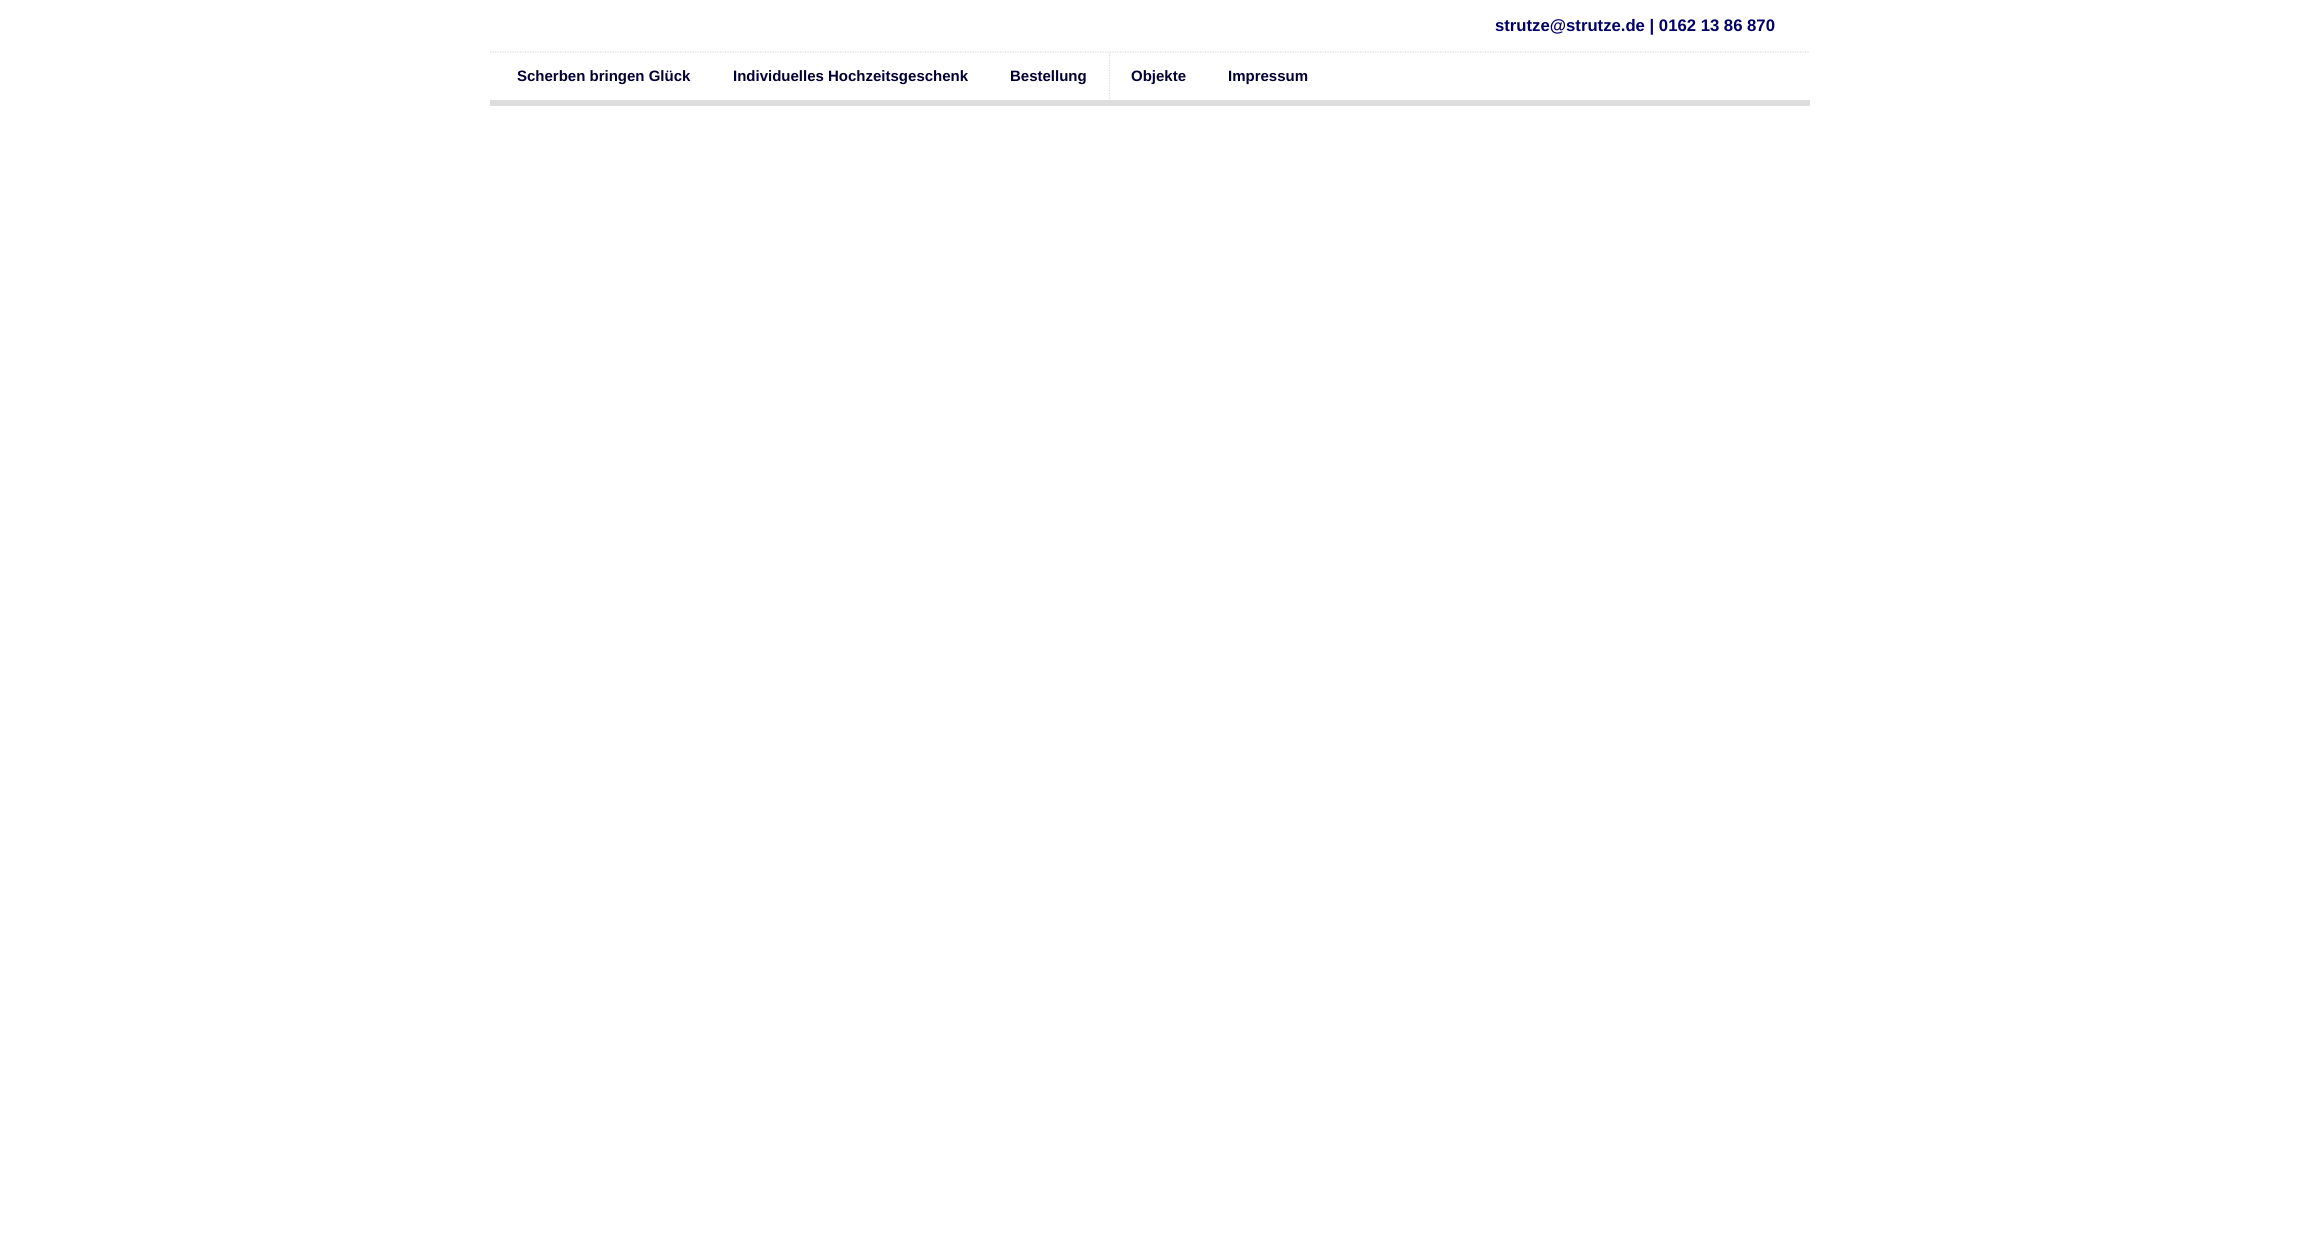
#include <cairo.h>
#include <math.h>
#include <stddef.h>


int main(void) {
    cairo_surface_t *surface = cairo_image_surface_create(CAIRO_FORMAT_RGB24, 2298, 1240);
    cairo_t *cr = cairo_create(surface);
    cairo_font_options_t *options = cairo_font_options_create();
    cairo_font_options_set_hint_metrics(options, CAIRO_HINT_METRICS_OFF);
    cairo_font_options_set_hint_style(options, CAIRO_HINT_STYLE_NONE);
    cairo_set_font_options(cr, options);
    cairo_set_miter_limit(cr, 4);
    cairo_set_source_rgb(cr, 1, 1, 1);
    cairo_paint(cr);
    cairo_select_font_face(cr, "Liberation Sans", CAIRO_FONT_SLANT_NORMAL, CAIRO_FONT_WEIGHT_BOLD);
    cairo_set_font_size(cr, 16.7);
    cairo_set_source_rgb(cr, 0, 0, 0.4);
    cairo_move_to(cr, 1495, 31);
    cairo_show_text(cr, "strutze@strutze.de | 0162 13 86 870");
    cairo_new_path(cr);
    cairo_move_to(cr, 490, 52);
    cairo_line_to(cr, 1810, 52);
    cairo_set_source_rgb(cr, 0.867, 0.867, 0.867);
    cairo_set_line_width(cr, 1.2);
    cairo_set_dash(cr, (double[]){1.25, 1.25}, 2, 0);
    cairo_stroke(cr);
    cairo_rectangle(cr, 490, 100, 1320, 6);
    cairo_fill(cr);
    cairo_set_font_size(cr, 15);
    cairo_set_source_rgb(cr, 0, 0, 0.2);
    cairo_move_to(cr, 517, 81);
    cairo_show_text(cr, "Scherben bringen Glück");
    cairo_move_to(cr, 733, 81);
    cairo_show_text(cr, "Individuelles Hochzeitsgeschenk");
    cairo_move_to(cr, 1010, 81);
    cairo_show_text(cr, "Bestellung");
    cairo_new_path(cr);
    cairo_move_to(cr, 1109.5, 52.5);
    cairo_line_to(cr, 1109.5, 100);
    cairo_set_source_rgb(cr, 0.867, 0.867, 0.867);
    cairo_stroke(cr);
    cairo_set_source_rgb(cr, 0, 0, 0.2);
    cairo_move_to(cr, 1131, 81);
    cairo_show_text(cr, "Objekte");
    cairo_move_to(cr, 1228, 81);
    cairo_show_text(cr, "Impressum");
    cairo_surface_write_to_png(surface, "page.png");
    cairo_font_options_destroy(options);
    cairo_destroy(cr);
    cairo_surface_destroy(surface);
    return 0;
}
